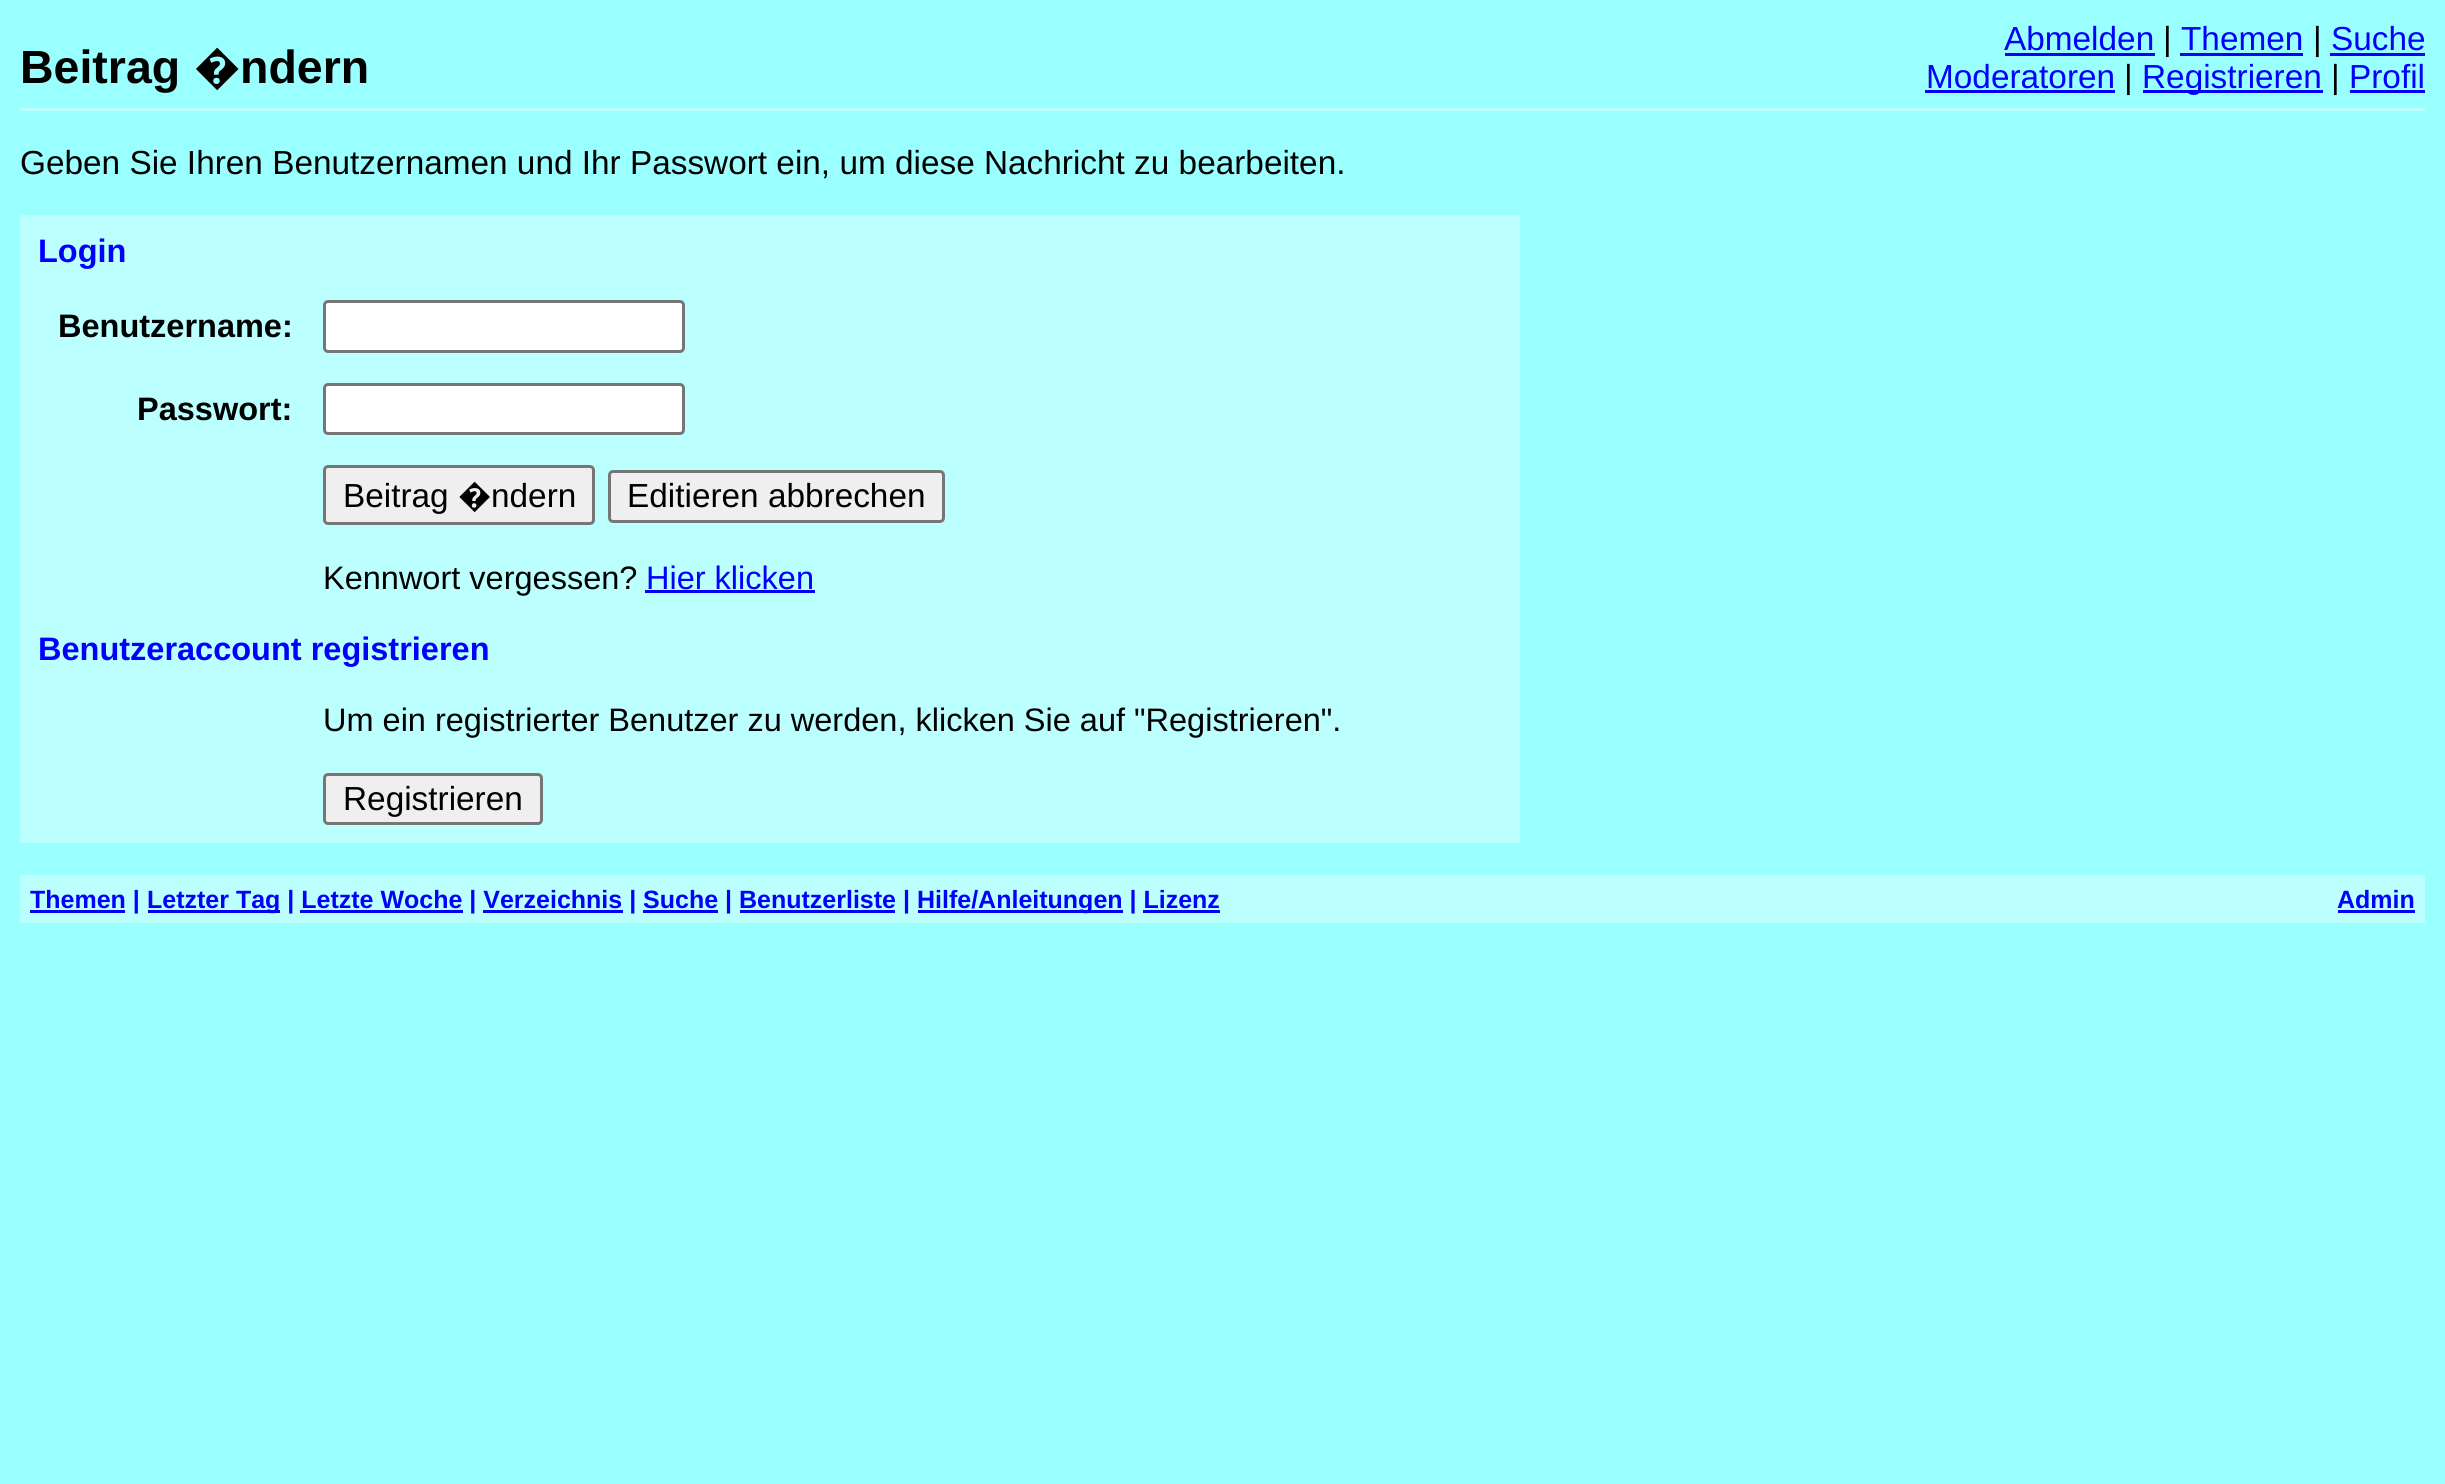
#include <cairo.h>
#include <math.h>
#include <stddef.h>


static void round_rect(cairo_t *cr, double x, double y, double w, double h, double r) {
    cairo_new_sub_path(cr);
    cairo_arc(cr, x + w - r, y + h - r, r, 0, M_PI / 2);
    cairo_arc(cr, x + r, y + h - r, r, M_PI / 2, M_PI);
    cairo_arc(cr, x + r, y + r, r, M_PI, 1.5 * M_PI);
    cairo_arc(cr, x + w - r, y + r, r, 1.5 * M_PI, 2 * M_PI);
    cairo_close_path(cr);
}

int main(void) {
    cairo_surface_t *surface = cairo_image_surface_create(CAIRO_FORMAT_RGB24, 2445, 1484);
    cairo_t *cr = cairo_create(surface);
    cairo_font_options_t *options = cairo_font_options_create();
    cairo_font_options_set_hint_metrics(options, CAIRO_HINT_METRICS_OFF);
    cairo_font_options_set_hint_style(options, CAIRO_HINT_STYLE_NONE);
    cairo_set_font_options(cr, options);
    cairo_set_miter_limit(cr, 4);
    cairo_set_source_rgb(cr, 0.6, 1, 1);
    cairo_paint(cr);
    cairo_set_source_rgb(cr, 0.733, 1, 1);
    cairo_rectangle(cr, 20, 108, 2405, 3);
    cairo_fill(cr);
    cairo_select_font_face(cr, "Liberation Sans", CAIRO_FONT_SLANT_NORMAL, CAIRO_FONT_WEIGHT_BOLD);
    cairo_set_font_size(cr, 46.5);
    cairo_set_source_rgb(cr, 0, 0, 0);
    cairo_move_to(cr, 20, 83);
    cairo_show_text(cr, "Beitrag");
    cairo_select_font_face(cr, "Noto Sans SemiBold", CAIRO_FONT_SLANT_NORMAL, CAIRO_FONT_WEIGHT_NORMAL);
    cairo_move_to(cr, 194, 83);
    cairo_show_text(cr, "�");
    cairo_select_font_face(cr, "Liberation Sans", CAIRO_FONT_SLANT_NORMAL, CAIRO_FONT_WEIGHT_BOLD);
    cairo_move_to(cr, 240, 83);
    cairo_show_text(cr, "ndern");
    cairo_select_font_face(cr, "Liberation Sans", CAIRO_FONT_SLANT_NORMAL, CAIRO_FONT_WEIGHT_NORMAL);
    cairo_set_font_size(cr, 33.35);
    cairo_set_source_rgb(cr, 0, 0, 1);
    cairo_move_to(cr, 2004, 50);
    cairo_show_text(cr, "Abmelden");
    cairo_rectangle(cr, 2005, 53, 150, 3);
    cairo_fill(cr);
    cairo_set_source_rgb(cr, 0, 0, 0);
    cairo_move_to(cr, 2163, 50);
    cairo_show_text(cr, "|");
    cairo_set_source_rgb(cr, 0, 0, 1);
    cairo_move_to(cr, 2181, 50);
    cairo_show_text(cr, "Themen");
    cairo_rectangle(cr, 2180, 53, 123, 3);
    cairo_fill(cr);
    cairo_set_source_rgb(cr, 0, 0, 0);
    cairo_move_to(cr, 2313, 50);
    cairo_show_text(cr, "|");
    cairo_set_source_rgb(cr, 0, 0, 1);
    cairo_move_to(cr, 2331, 50);
    cairo_show_text(cr, "Suche");
    cairo_rectangle(cr, 2330, 53, 95, 3);
    cairo_fill(cr);
    cairo_move_to(cr, 1926, 88);
    cairo_show_text(cr, "Moderatoren");
    cairo_rectangle(cr, 1925, 90, 190, 3);
    cairo_fill(cr);
    cairo_set_source_rgb(cr, 0, 0, 0);
    cairo_move_to(cr, 2124, 88);
    cairo_show_text(cr, "|");
    cairo_set_source_rgb(cr, 0, 0, 1);
    cairo_rectangle(cr, 2143, 90, 180, 3);
    cairo_fill(cr);
    cairo_move_to(cr, 2142, 88);
    cairo_show_text(cr, "Registrieren");
    cairo_set_source_rgb(cr, 0, 0, 0);
    cairo_move_to(cr, 2331, 88);
    cairo_show_text(cr, "|");
    cairo_set_source_rgb(cr, 0, 0, 1);
    cairo_move_to(cr, 2349, 88);
    cairo_show_text(cr, "Profil");
    cairo_rectangle(cr, 2350, 90, 75, 3);
    cairo_fill(cr);
    cairo_set_source_rgb(cr, 0, 0, 0);
    cairo_move_to(cr, 20, 174);
    cairo_show_text(cr, "Geben Sie Ihren Benutzernamen und Ihr Passwort ein, um diese Nachricht zu bearbeiten.");
    cairo_rectangle(cr, 21.5, 216.5, 1497, 625);
    cairo_set_source_rgb(cr, 0.733, 1, 1);
    cairo_set_line_width(cr, 3);
    cairo_stroke(cr);
    cairo_rectangle(cr, 23, 218, 1494, 67);
    cairo_fill(cr);
    cairo_select_font_face(cr, "Liberation Sans", CAIRO_FONT_SLANT_NORMAL, CAIRO_FONT_WEIGHT_BOLD);
    cairo_set_font_size(cr, 32.5);
    cairo_set_source_rgb(cr, 0, 0, 1);
    cairo_move_to(cr, 38, 262);
    cairo_show_text(cr, "Login");
    cairo_set_source_rgb(cr, 0.733, 1, 1);
    cairo_rectangle(cr, 23, 285, 1494, 83);
    cairo_fill(cr);
    cairo_set_source_rgb(cr, 0, 0, 0);
    cairo_move_to(cr, 58, 337);
    cairo_show_text(cr, "Benutzername:");
    cairo_set_source_rgb(cr, 1, 1, 1);
    round_rect(cr, 324.5, 301.5, 359, 50, 3.5);
    cairo_fill_preserve(cr);
    cairo_set_source_rgb(cr, 0.463, 0.463, 0.463);
    cairo_stroke(cr);
    cairo_set_source_rgb(cr, 0.733, 1, 1);
    cairo_rectangle(cr, 23, 368, 1494, 82);
    cairo_fill(cr);
    cairo_set_source_rgb(cr, 0, 0, 0);
    cairo_move_to(cr, 137, 420);
    cairo_show_text(cr, "Passwort:");
    cairo_set_source_rgb(cr, 1, 1, 1);
    round_rect(cr, 324.5, 384.5, 359, 49, 3.5);
    cairo_fill_preserve(cr);
    cairo_set_source_rgb(cr, 0.463, 0.463, 0.463);
    cairo_stroke(cr);
    cairo_set_source_rgb(cr, 0.733, 1, 1);
    cairo_rectangle(cr, 23, 450, 1494, 90);
    cairo_fill(cr);
    cairo_set_source_rgb(cr, 0.937, 0.937, 0.937);
    round_rect(cr, 324.5, 466.5, 269, 57, 3.5);
    cairo_fill_preserve(cr);
    cairo_set_source_rgb(cr, 0.463, 0.463, 0.463);
    cairo_stroke(cr);
    cairo_select_font_face(cr, "Liberation Sans", CAIRO_FONT_SLANT_NORMAL, CAIRO_FONT_WEIGHT_NORMAL);
    cairo_set_font_size(cr, 33.35);
    cairo_set_source_rgb(cr, 0, 0, 0);
    cairo_move_to(cr, 343, 507);
    cairo_show_text(cr, "Beitrag");
    cairo_select_font_face(cr, "Noto Sans", CAIRO_FONT_SLANT_NORMAL, CAIRO_FONT_WEIGHT_NORMAL);
    cairo_move_to(cr, 458, 507);
    cairo_show_text(cr, "�");
    cairo_select_font_face(cr, "Liberation Sans", CAIRO_FONT_SLANT_NORMAL, CAIRO_FONT_WEIGHT_NORMAL);
    cairo_move_to(cr, 491, 507);
    cairo_show_text(cr, "ndern");
    cairo_set_source_rgb(cr, 0.937, 0.937, 0.937);
    round_rect(cr, 609.5, 471.5, 334, 50, 3.5);
    cairo_fill_preserve(cr);
    cairo_set_source_rgb(cr, 0.463, 0.463, 0.463);
    cairo_stroke(cr);
    cairo_set_source_rgb(cr, 0, 0, 0);
    cairo_move_to(cr, 627, 507);
    cairo_show_text(cr, "Editieren abbrechen");
    cairo_set_source_rgb(cr, 0.733, 1, 1);
    cairo_rectangle(cr, 23, 540, 1494, 143);
    cairo_fill(cr);
    cairo_set_font_size(cr, 32.5);
    cairo_set_source_rgb(cr, 0, 0, 0);
    cairo_move_to(cr, 323, 589);
    cairo_show_text(cr, "Kennwort vergessen?");
    cairo_set_source_rgb(cr, 0, 0, 1);
    cairo_move_to(cr, 646, 589);
    cairo_show_text(cr, "Hier klicken");
    cairo_rectangle(cr, 645, 590, 170, 3);
    cairo_fill(cr);
    cairo_select_font_face(cr, "Liberation Sans", CAIRO_FONT_SLANT_NORMAL, CAIRO_FONT_WEIGHT_BOLD);
    cairo_move_to(cr, 38, 660);
    cairo_show_text(cr, "Benutzeraccount registrieren");
    cairo_set_source_rgb(cr, 0.733, 1, 1);
    cairo_rectangle(cr, 23, 683, 1494, 75);
    cairo_fill(cr);
    cairo_select_font_face(cr, "Liberation Sans", CAIRO_FONT_SLANT_NORMAL, CAIRO_FONT_WEIGHT_NORMAL);
    cairo_set_source_rgb(cr, 0, 0, 0);
    cairo_move_to(cr, 323, 731);
    cairo_show_text(cr, "Um ein registrierter Benutzer zu werden, klicken Sie auf \"Registrieren\".");
    cairo_set_source_rgb(cr, 0.733, 1, 1);
    cairo_rectangle(cr, 23, 758, 1494, 82);
    cairo_fill(cr);
    cairo_set_source_rgb(cr, 0.937, 0.937, 0.937);
    round_rect(cr, 324.5, 774.5, 217, 49, 3.5);
    cairo_fill_preserve(cr);
    cairo_set_source_rgb(cr, 0.463, 0.463, 0.463);
    cairo_stroke(cr);
    cairo_set_font_size(cr, 33.35);
    cairo_set_source_rgb(cr, 0, 0, 0);
    cairo_move_to(cr, 343, 810);
    cairo_show_text(cr, "Registrieren");
    cairo_set_source_rgb(cr, 0.733, 1, 1);
    cairo_rectangle(cr, 20, 875, 2405, 48);
    cairo_fill(cr);
    cairo_set_source_rgb(cr, 0, 0, 1);
    cairo_rectangle(cr, 30, 910, 95, 3);
    cairo_fill(cr);
    cairo_select_font_face(cr, "Liberation Sans", CAIRO_FONT_SLANT_NORMAL, CAIRO_FONT_WEIGHT_BOLD);
    cairo_set_font_size(cr, 25);
    cairo_move_to(cr, 30, 908);
    cairo_show_text(cr, "Themen |");
    cairo_rectangle(cr, 148, 910, 132, 3);
    cairo_fill(cr);
    cairo_move_to(cr, 147, 908);
    cairo_show_text(cr, "Letzter Tag | Letzte Woche | Verzeichnis | Suche | Benutzerliste |");
    cairo_rectangle(cr, 300, 910, 163, 3);
    cairo_fill(cr);
    cairo_rectangle(cr, 483, 910, 140, 3);
    cairo_fill(cr);
    cairo_rectangle(cr, 643, 910, 75, 3);
    cairo_fill(cr);
    cairo_rectangle(cr, 740, 910, 155, 3);
    cairo_fill(cr);
    cairo_rectangle(cr, 918, 910, 205, 3);
    cairo_fill(cr);
    cairo_move_to(cr, 917, 908);
    cairo_show_text(cr, "Hilfe/Anleitungen | Lizenz");
    cairo_rectangle(cr, 1143, 910, 77, 3);
    cairo_fill(cr);
    cairo_move_to(cr, 2337, 908);
    cairo_show_text(cr, "Admin");
    cairo_rectangle(cr, 2338, 910, 77, 3);
    cairo_fill(cr);
    cairo_surface_write_to_png(surface, "page.png");
    cairo_font_options_destroy(options);
    cairo_destroy(cr);
    cairo_surface_destroy(surface);
    return 0;
}
